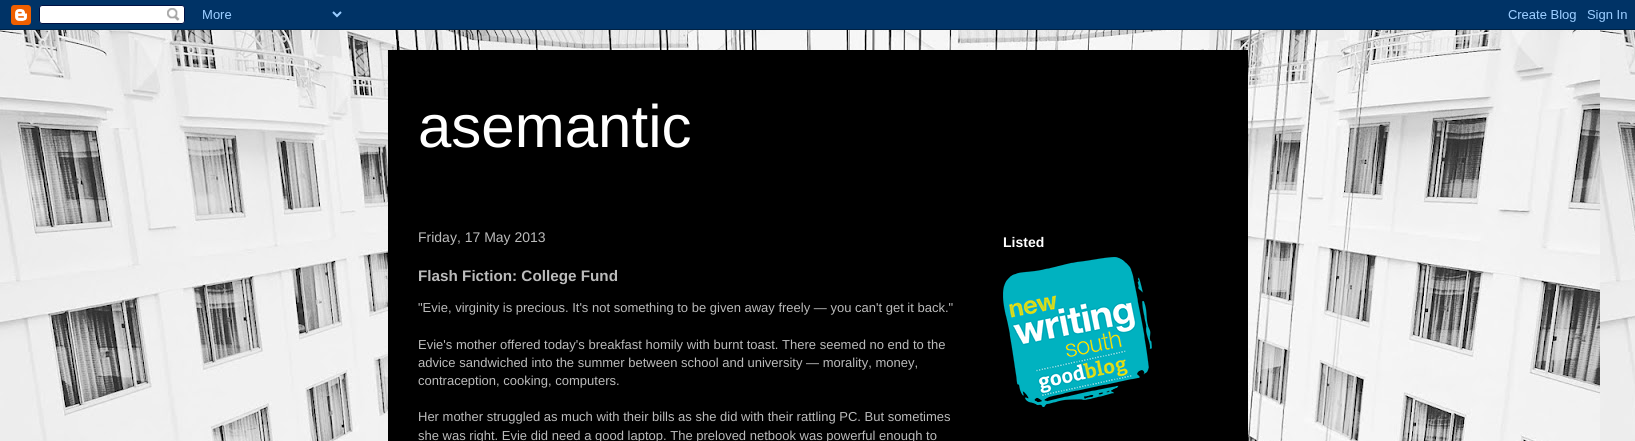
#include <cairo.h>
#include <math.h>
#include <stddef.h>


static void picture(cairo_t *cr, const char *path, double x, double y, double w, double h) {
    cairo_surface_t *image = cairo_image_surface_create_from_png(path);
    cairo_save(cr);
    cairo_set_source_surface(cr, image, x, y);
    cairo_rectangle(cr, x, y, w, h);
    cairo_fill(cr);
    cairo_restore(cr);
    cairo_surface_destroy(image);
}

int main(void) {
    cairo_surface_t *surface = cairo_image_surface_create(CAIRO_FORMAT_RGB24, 1635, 441);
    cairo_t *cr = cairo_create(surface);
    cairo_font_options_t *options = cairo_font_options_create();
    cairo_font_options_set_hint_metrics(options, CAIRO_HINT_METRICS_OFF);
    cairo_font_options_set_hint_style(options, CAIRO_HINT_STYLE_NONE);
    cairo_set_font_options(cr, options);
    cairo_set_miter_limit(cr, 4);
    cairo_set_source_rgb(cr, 1, 1, 1);
    cairo_paint(cr);
    picture(cr, "img1.png", 0, 30, 1635, 411);
    picture(cr, "img2.png", 0, 0, 1635, 30);
    cairo_set_source_rgb(cr, 0, 0, 0);
    cairo_rectangle(cr, 388, 50, 860, 391);
    cairo_fill(cr);
    cairo_select_font_face(cr, "Liberation Sans", CAIRO_FONT_SLANT_NORMAL, CAIRO_FONT_WEIGHT_NORMAL);
    cairo_set_font_size(cr, 60);
    cairo_set_source_rgb(cr, 1, 1, 1);
    cairo_move_to(cr, 418, 147);
    cairo_show_text(cr, "asemantic");
    cairo_set_font_size(cr, 14);
    cairo_set_source_rgb(cr, 0.733, 0.733, 0.733);
    cairo_move_to(cr, 418, 242);
    cairo_show_text(cr, "Friday, 17 May 2013");
    cairo_select_font_face(cr, "Liberation Sans", CAIRO_FONT_SLANT_NORMAL, CAIRO_FONT_WEIGHT_BOLD);
    cairo_set_font_size(cr, 15.25);
    cairo_move_to(cr, 418, 281);
    cairo_show_text(cr, "Flash Fiction: College Fund");
    cairo_select_font_face(cr, "Liberation Sans", CAIRO_FONT_SLANT_NORMAL, CAIRO_FONT_WEIGHT_NORMAL);
    cairo_set_font_size(cr, 13);
    cairo_move_to(cr, 418, 312);
    cairo_show_text(cr, "\"Evie, virginity is precious. It's not something to be given away freely — you can't get it back.\"");
    cairo_move_to(cr, 418, 349);
    cairo_show_text(cr, "Evie's mother offered today's breakfast homily with burnt toast. There seemed no end to the");
    cairo_move_to(cr, 418, 367);
    cairo_show_text(cr, "advice sandwiched into the summer between school and university — morality, money,");
    cairo_move_to(cr, 418, 385);
    cairo_show_text(cr, "contraception, cooking, computers.");
    cairo_move_to(cr, 418, 421);
    cairo_show_text(cr, "Her mother struggled as much with their bills as she did with their rattling PC. But sometimes");
    cairo_move_to(cr, 418, 440);
    cairo_show_text(cr, "she was right. Evie did need a good laptop. The preloved netbook was powerful enough to");
    cairo_select_font_face(cr, "Liberation Sans", CAIRO_FONT_SLANT_NORMAL, CAIRO_FONT_WEIGHT_BOLD);
    cairo_set_font_size(cr, 14);
    cairo_set_source_rgb(cr, 1, 1, 1);
    cairo_move_to(cr, 1003, 247);
    cairo_show_text(cr, "Listed");
    picture(cr, "img3.png", 1003, 257, 149, 150);
    cairo_surface_write_to_png(surface, "page.png");
    cairo_font_options_destroy(options);
    cairo_destroy(cr);
    cairo_surface_destroy(surface);
    return 0;
}
